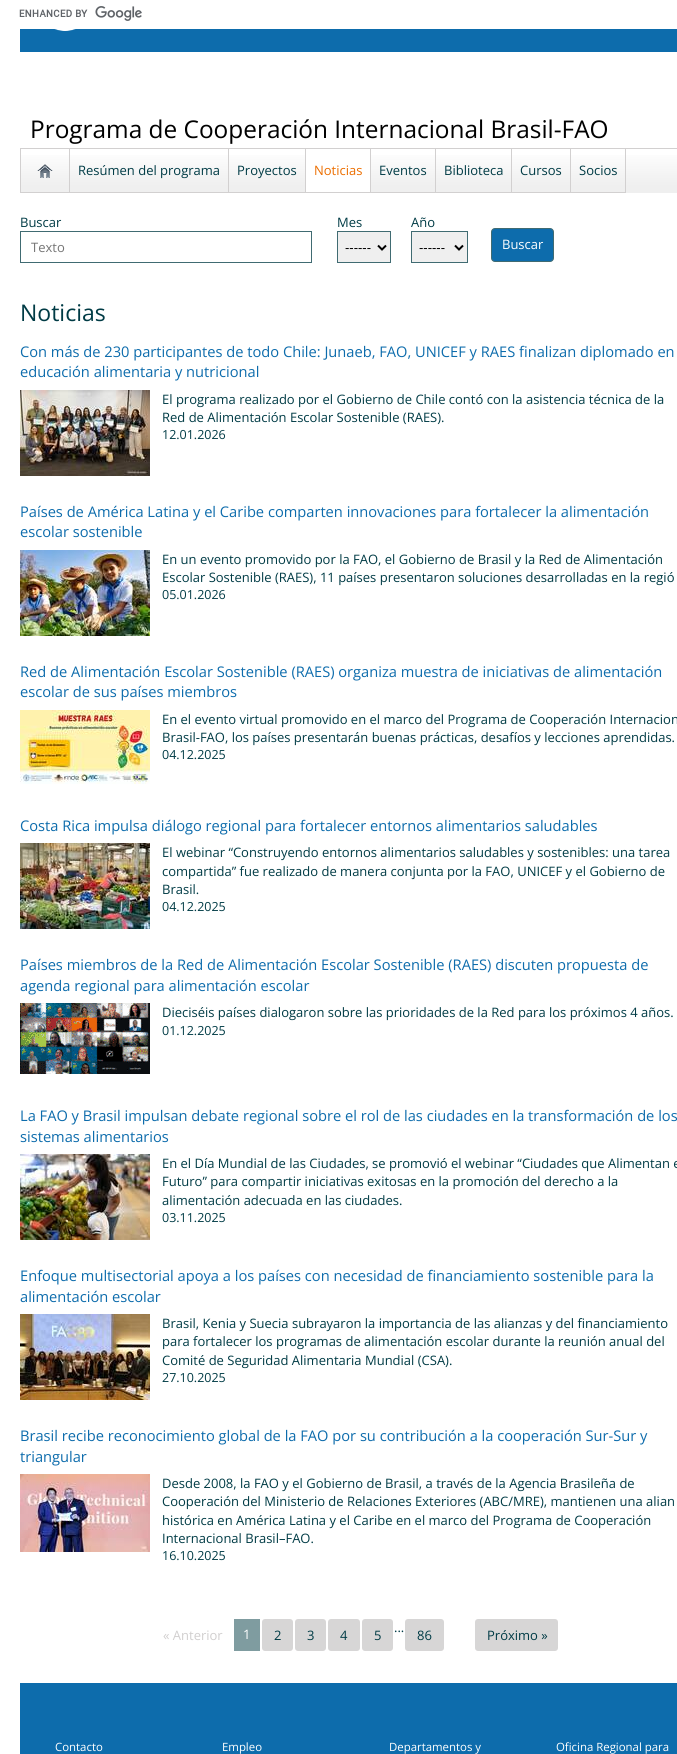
#include <cairo.h>
#include <math.h>
#include <stddef.h>


static void round_rect(cairo_t *cr, double x, double y, double w, double h, double r) {
    cairo_new_sub_path(cr);
    cairo_arc(cr, x + w - r, y + h - r, r, 0, M_PI / 2);
    cairo_arc(cr, x + r, y + h - r, r, M_PI / 2, M_PI);
    cairo_arc(cr, x + r, y + r, r, M_PI, 1.5 * M_PI);
    cairo_arc(cr, x + w - r, y + r, r, 1.5 * M_PI, 2 * M_PI);
    cairo_close_path(cr);
}

static void picture(cairo_t *cr, const char *path, double x, double y, double w, double h) {
    cairo_surface_t *image = cairo_image_surface_create_from_png(path);
    cairo_save(cr);
    cairo_set_source_surface(cr, image, x, y);
    cairo_rectangle(cr, x, y, w, h);
    cairo_fill(cr);
    cairo_restore(cr);
    cairo_surface_destroy(image);
}

int main(void) {
    cairo_surface_t *surface = cairo_image_surface_create(CAIRO_FORMAT_RGB24, 677, 1754);
    cairo_t *cr = cairo_create(surface);
    cairo_font_options_t *options = cairo_font_options_create();
    cairo_font_options_set_hint_metrics(options, CAIRO_HINT_METRICS_OFF);
    cairo_font_options_set_hint_style(options, CAIRO_HINT_STYLE_NONE);
    cairo_set_font_options(cr, options);
    cairo_set_miter_limit(cr, 4);
    cairo_pattern_t *gradient;
    cairo_set_source_rgb(cr, 1, 1, 1);
    cairo_paint(cr);
    cairo_set_source_rgb(cr, 0.051, 0.424, 0.675);
    cairo_rectangle(cr, 20, 29, 657, 23);
    cairo_fill(cr);
    picture(cr, "img1.png", 19, 6, 123, 15);
    picture(cr, "img2.png", 54, 29, 22, 2);
    cairo_select_font_face(cr, "Open Sans", CAIRO_FONT_SLANT_NORMAL, CAIRO_FONT_WEIGHT_NORMAL);
    cairo_set_font_size(cr, 24.4);
    cairo_set_source_rgb(cr, 0, 0, 0);
    cairo_move_to(cr, 30, 138);
    cairo_show_text(cr, "Programa de Cooperación Internacional Brasil-FAO");
    gradient = cairo_pattern_create_linear(480, 149, 480, 193);
    cairo_pattern_add_color_stop_rgba(gradient, 0, 1, 1, 1, 1);
    cairo_pattern_add_color_stop_rgba(gradient, 0.84, 0.937, 0.937, 0.937, 1);
    cairo_set_source(cr, gradient);
    cairo_pattern_destroy(gradient);
    cairo_rectangle(cr, 21, 155, 656, 38);
    cairo_fill(cr);
    cairo_set_source_rgb(cr, 0.824, 0.816, 0.816);
    cairo_rectangle(cr, 20, 148, 657, 1);
    cairo_fill(cr);
    cairo_rectangle(cr, 69, 149, 1, 44);
    cairo_fill(cr);
    cairo_rectangle(cr, 20, 192, 50, 1);
    cairo_fill(cr);
    cairo_rectangle(cr, 20, 149, 1, 44);
    cairo_fill(cr);
    picture(cr, "img3.png", 37, 164, 16, 14);
    cairo_rectangle(cr, 228, 149, 1, 44);
    cairo_fill(cr);
    cairo_rectangle(cr, 70, 192, 159, 1);
    cairo_fill(cr);
    cairo_set_font_size(cr, 13);
    cairo_set_source_rgb(cr, 0, 0.231, 0.271);
    cairo_move_to(cr, 78, 175);
    cairo_show_text(cr, "Resúmen del programa");
    cairo_set_source_rgb(cr, 0.824, 0.816, 0.816);
    cairo_rectangle(cr, 305, 149, 1, 44);
    cairo_fill(cr);
    cairo_rectangle(cr, 229, 192, 77, 1);
    cairo_fill(cr);
    cairo_set_source_rgb(cr, 0, 0.231, 0.271);
    cairo_move_to(cr, 237, 175);
    cairo_show_text(cr, "Proyectos");
    cairo_set_source_rgb(cr, 1, 1, 1);
    cairo_rectangle(cr, 306, 155, 64, 37);
    cairo_fill(cr);
    cairo_set_source_rgb(cr, 0.824, 0.816, 0.816);
    cairo_rectangle(cr, 370, 149, 1, 44);
    cairo_fill(cr);
    cairo_rectangle(cr, 306, 192, 65, 1);
    cairo_fill(cr);
    cairo_set_source_rgb(cr, 0.925, 0.431, 0);
    cairo_move_to(cr, 314, 175);
    cairo_show_text(cr, "Noticias");
    cairo_set_source_rgb(cr, 0.824, 0.816, 0.816);
    cairo_rectangle(cr, 435, 149, 1, 44);
    cairo_fill(cr);
    cairo_rectangle(cr, 371, 192, 65, 1);
    cairo_fill(cr);
    cairo_set_source_rgb(cr, 0, 0.231, 0.271);
    cairo_move_to(cr, 379, 175);
    cairo_show_text(cr, "Eventos");
    cairo_set_source_rgb(cr, 0.824, 0.816, 0.816);
    cairo_rectangle(cr, 511, 149, 1, 44);
    cairo_fill(cr);
    cairo_rectangle(cr, 436, 192, 76, 1);
    cairo_fill(cr);
    cairo_set_source_rgb(cr, 0, 0.231, 0.271);
    cairo_move_to(cr, 444, 175);
    cairo_show_text(cr, "Biblioteca");
    cairo_set_source_rgb(cr, 0.824, 0.816, 0.816);
    cairo_rectangle(cr, 570, 149, 1, 44);
    cairo_fill(cr);
    cairo_rectangle(cr, 512, 192, 59, 1);
    cairo_fill(cr);
    cairo_set_source_rgb(cr, 0, 0.231, 0.271);
    cairo_move_to(cr, 520, 175);
    cairo_show_text(cr, "Cursos");
    cairo_set_source_rgb(cr, 0.824, 0.816, 0.816);
    cairo_rectangle(cr, 625, 149, 1, 44);
    cairo_fill(cr);
    cairo_rectangle(cr, 571, 192, 55, 1);
    cairo_fill(cr);
    cairo_set_source_rgb(cr, 0, 0.231, 0.271);
    cairo_move_to(cr, 579, 175);
    cairo_show_text(cr, "Socios");
    cairo_move_to(cr, 20, 227);
    cairo_show_text(cr, "Buscar");
    cairo_rectangle(cr, 20.5, 231.5, 291, 31);
    cairo_set_source_rgb(cr, 0.251, 0.42, 0.447);
    cairo_set_line_width(cr, 1);
    cairo_stroke(cr);
    cairo_set_source_rgb(cr, 0.459, 0.459, 0.459);
    cairo_move_to(cr, 31, 252);
    cairo_show_text(cr, "Texto");
    cairo_set_source_rgb(cr, 0, 0.231, 0.271);
    cairo_move_to(cr, 337, 227);
    cairo_show_text(cr, "Mes");
    cairo_set_source_rgb(cr, 0.937, 0.937, 0.937);
    cairo_rectangle(cr, 337.5, 231.5, 53, 31);
    cairo_fill_preserve(cr);
    cairo_set_source_rgb(cr, 0.251, 0.42, 0.447);
    cairo_stroke(cr);
    cairo_new_path(cr);
    cairo_move_to(cr, 378, 245.5);
    cairo_line_to(cr, 382, 249.5);
    cairo_line_to(cr, 386, 245.5);
    cairo_set_source_rgb(cr, 0, 0, 0);
    cairo_set_line_width(cr, 2);
    cairo_stroke(cr);
    cairo_select_font_face(cr, "Liberation Sans", CAIRO_FONT_SLANT_NORMAL, CAIRO_FONT_WEIGHT_NORMAL);
    cairo_move_to(cr, 345, 252);
    cairo_show_text(cr, "------");
    cairo_select_font_face(cr, "Open Sans", CAIRO_FONT_SLANT_NORMAL, CAIRO_FONT_WEIGHT_NORMAL);
    cairo_set_source_rgb(cr, 0, 0.231, 0.271);
    cairo_move_to(cr, 411, 227);
    cairo_show_text(cr, "Año");
    cairo_set_source_rgb(cr, 0.937, 0.937, 0.937);
    cairo_rectangle(cr, 411.5, 231.5, 56, 31);
    cairo_fill_preserve(cr);
    cairo_set_source_rgb(cr, 0.251, 0.42, 0.447);
    cairo_set_line_width(cr, 1);
    cairo_stroke(cr);
    cairo_new_path(cr);
    cairo_move_to(cr, 455, 245.5);
    cairo_line_to(cr, 459, 249.5);
    cairo_line_to(cr, 463, 245.5);
    cairo_set_source_rgb(cr, 0, 0, 0);
    cairo_set_line_width(cr, 2);
    cairo_stroke(cr);
    cairo_select_font_face(cr, "Liberation Sans", CAIRO_FONT_SLANT_NORMAL, CAIRO_FONT_WEIGHT_NORMAL);
    cairo_move_to(cr, 419, 252);
    cairo_show_text(cr, "------");
    cairo_set_source_rgb(cr, 0.051, 0.424, 0.675);
    round_rect(cr, 491.5, 228.5, 62, 33, 3.5);
    cairo_fill_preserve(cr);
    cairo_set_source_rgb(cr, 0.251, 0.42, 0.447);
    cairo_set_line_width(cr, 1);
    cairo_stroke(cr);
    cairo_select_font_face(cr, "Open Sans", CAIRO_FONT_SLANT_NORMAL, CAIRO_FONT_WEIGHT_NORMAL);
    cairo_set_source_rgb(cr, 1, 1, 1);
    cairo_move_to(cr, 502, 249);
    cairo_show_text(cr, "Buscar");
    cairo_set_font_size(cr, 23);
    cairo_set_source_rgb(cr, 0, 0.231, 0.271);
    cairo_move_to(cr, 20, 321);
    cairo_show_text(cr, "Noticias");
    cairo_set_font_size(cr, 14.65);
    cairo_set_source_rgb(cr, 0.051, 0.424, 0.675);
    cairo_move_to(cr, 20, 357);
    cairo_show_text(cr, "Con más de 230 participantes de todo Chile: Junaeb, FAO, UNICEF y RAES finalizan diplomado en");
    cairo_move_to(cr, 20, 377);
    cairo_show_text(cr, "educación alimentaria y nutricional");
    picture(cr, "img4.png", 20, 390, 130, 86);
    cairo_set_font_size(cr, 13);
    cairo_set_source_rgb(cr, 0, 0.231, 0.271);
    cairo_move_to(cr, 162, 404);
    cairo_show_text(cr, "El programa realizado por el Gobierno de Chile contó con la asistencia técnica de la");
    cairo_move_to(cr, 162, 422);
    cairo_show_text(cr, "Red de Alimentación Escolar Sostenible (RAES).");
    cairo_set_font_size(cr, 12.5);
    cairo_move_to(cr, 162, 439);
    cairo_show_text(cr, "12.01.2026");
    cairo_set_font_size(cr, 14.65);
    cairo_set_source_rgb(cr, 0.051, 0.424, 0.675);
    cairo_move_to(cr, 20, 517);
    cairo_show_text(cr, "Países de América Latina y el Caribe comparten innovaciones para fortalecer la alimentación");
    cairo_move_to(cr, 20, 537);
    cairo_show_text(cr, "escolar sostenible");
    picture(cr, "img5.png", 20, 550, 130, 86);
    cairo_set_font_size(cr, 13);
    cairo_set_source_rgb(cr, 0, 0.231, 0.271);
    cairo_move_to(cr, 162, 564);
    cairo_show_text(cr, "En un evento promovido por la FAO, el Gobierno de Brasil y la Red de Alimentación");
    cairo_move_to(cr, 162, 582);
    cairo_show_text(cr, "Escolar Sostenible (RAES), 11 países presentaron soluciones desarrolladas en la regió");
    cairo_set_font_size(cr, 12.5);
    cairo_move_to(cr, 162, 599);
    cairo_show_text(cr, "05.01.2026");
    cairo_set_font_size(cr, 14.65);
    cairo_set_source_rgb(cr, 0.051, 0.424, 0.675);
    cairo_move_to(cr, 20, 677);
    cairo_show_text(cr, "Red de Alimentación Escolar Sostenible (RAES) organiza muestra de iniciativas de alimentación");
    cairo_move_to(cr, 20, 697);
    cairo_show_text(cr, "escolar de sus países miembros");
    picture(cr, "img6.png", 20, 710, 130, 74);
    cairo_set_font_size(cr, 13);
    cairo_set_source_rgb(cr, 0, 0.231, 0.271);
    cairo_move_to(cr, 162, 724);
    cairo_show_text(cr, "En el evento virtual promovido en el marco del Programa de Cooperación Internacion");
    cairo_move_to(cr, 162, 742);
    cairo_show_text(cr, "Brasil-FAO, los países presentarán buenas prácticas, desafíos y lecciones aprendidas.");
    cairo_set_font_size(cr, 12.5);
    cairo_move_to(cr, 162, 759);
    cairo_show_text(cr, "04.12.2025");
    cairo_set_font_size(cr, 14.65);
    cairo_set_source_rgb(cr, 0.051, 0.424, 0.675);
    cairo_move_to(cr, 20, 831);
    cairo_show_text(cr, "Costa Rica impulsa diálogo regional para fortalecer entornos alimentarios saludables");
    picture(cr, "img7.png", 20, 843, 130, 86);
    cairo_set_font_size(cr, 13);
    cairo_set_source_rgb(cr, 0, 0.231, 0.271);
    cairo_move_to(cr, 162, 857);
    cairo_show_text(cr, "El webinar “Construyendo entornos alimentarios saludables y sostenibles: una tarea");
    cairo_move_to(cr, 162, 876);
    cairo_show_text(cr, "compartida” fue realizado de manera conjunta por la FAO, UNICEF y el Gobierno de");
    cairo_move_to(cr, 162, 894);
    cairo_show_text(cr, "Brasil.");
    cairo_set_font_size(cr, 12.5);
    cairo_move_to(cr, 162, 911);
    cairo_show_text(cr, "04.12.2025");
    cairo_set_font_size(cr, 14.65);
    cairo_set_source_rgb(cr, 0.051, 0.424, 0.675);
    cairo_move_to(cr, 20, 970);
    cairo_show_text(cr, "Países miembros de la Red de Alimentación Escolar Sostenible (RAES) discuten propuesta de");
    cairo_move_to(cr, 20, 991);
    cairo_show_text(cr, "agenda regional para alimentación escolar");
    picture(cr, "img8.png", 20, 1003, 130, 71);
    cairo_set_font_size(cr, 13);
    cairo_set_source_rgb(cr, 0, 0.231, 0.271);
    cairo_move_to(cr, 162, 1017);
    cairo_show_text(cr, "Dieciséis países dialogaron sobre las prioridades de la Red para los próximos 4 años.");
    cairo_set_font_size(cr, 12.5);
    cairo_move_to(cr, 162, 1035);
    cairo_show_text(cr, "01.12.2025");
    cairo_set_font_size(cr, 14.65);
    cairo_set_source_rgb(cr, 0.051, 0.424, 0.675);
    cairo_move_to(cr, 20, 1121);
    cairo_show_text(cr, "La FAO y Brasil impulsan debate regional sobre el rol de las ciudades en la transformación de los");
    cairo_move_to(cr, 20, 1142);
    cairo_show_text(cr, "sistemas alimentarios");
    picture(cr, "img9.png", 20, 1154, 130, 86);
    cairo_set_font_size(cr, 13);
    cairo_set_source_rgb(cr, 0, 0.231, 0.271);
    cairo_move_to(cr, 162, 1168);
    cairo_show_text(cr, "En el Día Mundial de las Ciudades, se promovió el webinar “Ciudades que Alimentan e");
    cairo_move_to(cr, 162, 1186);
    cairo_show_text(cr, "Futuro” para compartir iniciativas exitosas en la promoción del derecho a la");
    cairo_move_to(cr, 162, 1205);
    cairo_show_text(cr, "alimentación adecuada en las ciudades.");
    cairo_set_font_size(cr, 12.5);
    cairo_move_to(cr, 162, 1222);
    cairo_show_text(cr, "03.11.2025");
    cairo_set_font_size(cr, 14.65);
    cairo_set_source_rgb(cr, 0.051, 0.424, 0.675);
    cairo_move_to(cr, 20, 1281);
    cairo_show_text(cr, "Enfoque multisectorial apoya a los países con necesidad de financiamiento sostenible para la");
    cairo_move_to(cr, 20, 1302);
    cairo_show_text(cr, "alimentación escolar");
    picture(cr, "img10.png", 20, 1314, 130, 86);
    cairo_set_font_size(cr, 13);
    cairo_set_source_rgb(cr, 0, 0.231, 0.271);
    cairo_move_to(cr, 162, 1328);
    cairo_show_text(cr, "Brasil, Kenia y Suecia subrayaron la importancia de las alianzas y del financiamiento");
    cairo_move_to(cr, 162, 1346);
    cairo_show_text(cr, "para fortalecer los programas de alimentación escolar durante la reunión anual del");
    cairo_move_to(cr, 162, 1365);
    cairo_show_text(cr, "Comité de Seguridad Alimentaria Mundial (CSA).");
    cairo_set_font_size(cr, 12.5);
    cairo_move_to(cr, 162, 1382);
    cairo_show_text(cr, "27.10.2025");
    cairo_set_font_size(cr, 14.65);
    cairo_set_source_rgb(cr, 0.051, 0.424, 0.675);
    cairo_move_to(cr, 20, 1441);
    cairo_show_text(cr, "Brasil recibe reconocimiento global de la FAO por su contribución a la cooperación Sur-Sur y");
    cairo_move_to(cr, 20, 1462);
    cairo_show_text(cr, "triangular");
    picture(cr, "img11.png", 20, 1474, 130, 78);
    cairo_set_font_size(cr, 13);
    cairo_set_source_rgb(cr, 0, 0.231, 0.271);
    cairo_move_to(cr, 162, 1488);
    cairo_show_text(cr, "Desde 2008, la FAO y el Gobierno de Brasil, a través de la Agencia Brasileña de");
    cairo_move_to(cr, 162, 1506);
    cairo_show_text(cr, "Cooperación del Ministerio de Relaciones Exteriores (ABC/MRE), mantienen una alian");
    cairo_move_to(cr, 162, 1525);
    cairo_show_text(cr, "histórica en América Latina y el Caribe en el marco del Programa de Cooperación");
    cairo_move_to(cr, 162, 1543);
    cairo_show_text(cr, "Internacional Brasil–FAO.");
    cairo_set_font_size(cr, 12.5);
    cairo_move_to(cr, 162, 1560);
    cairo_show_text(cr, "16.10.2025");
    cairo_set_font_size(cr, 13);
    cairo_set_source_rgb(cr, 0.82, 0.812, 0.812);
    cairo_move_to(cr, 163, 1640);
    cairo_show_text(cr, "« Anterior");
    cairo_set_source_rgb(cr, 0.498, 0.612, 0.627);
    cairo_rectangle(cr, 234, 1619, 26, 32);
    cairo_fill(cr);
    cairo_set_source_rgb(cr, 1, 1, 1);
    cairo_move_to(cr, 243, 1639);
    cairo_show_text(cr, "1");
    cairo_set_source_rgb(cr, 0.843, 0.839, 0.839);
    round_rect(cr, 262, 1619, 31, 32, 3);
    cairo_fill(cr);
    cairo_set_source_rgb(cr, 0, 0.231, 0.271);
    cairo_move_to(cr, 274, 1640);
    cairo_show_text(cr, "2");
    cairo_set_source_rgb(cr, 0.843, 0.839, 0.839);
    round_rect(cr, 295, 1619, 31, 32, 3);
    cairo_fill(cr);
    cairo_set_source_rgb(cr, 0, 0.231, 0.271);
    cairo_move_to(cr, 307, 1640);
    cairo_show_text(cr, "3");
    cairo_set_source_rgb(cr, 0.843, 0.839, 0.839);
    round_rect(cr, 328, 1619, 32, 32, 3);
    cairo_fill(cr);
    cairo_set_source_rgb(cr, 0, 0.231, 0.271);
    cairo_move_to(cr, 340, 1640);
    cairo_show_text(cr, "4");
    cairo_set_source_rgb(cr, 0.843, 0.839, 0.839);
    round_rect(cr, 362, 1619, 31, 32, 3);
    cairo_fill(cr);
    cairo_set_source_rgb(cr, 0, 0.231, 0.271);
    cairo_move_to(cr, 374, 1640);
    cairo_show_text(cr, "5");
    cairo_move_to(cr, 394, 1632);
    cairo_show_text(cr, "...");
    cairo_set_source_rgb(cr, 0.843, 0.839, 0.839);
    round_rect(cr, 405, 1619, 39, 32, 3);
    cairo_fill(cr);
    cairo_set_source_rgb(cr, 0, 0.231, 0.271);
    cairo_move_to(cr, 417, 1640);
    cairo_show_text(cr, "86");
    cairo_set_source_rgb(cr, 0.843, 0.839, 0.839);
    round_rect(cr, 475, 1619, 83, 32, 3);
    cairo_fill(cr);
    cairo_set_source_rgb(cr, 0, 0.231, 0.271);
    cairo_move_to(cr, 487, 1640);
    cairo_show_text(cr, "Próximo »");
    cairo_set_source_rgb(cr, 0.051, 0.424, 0.675);
    cairo_rectangle(cr, 20, 1683, 657, 71);
    cairo_fill(cr);
    cairo_set_font_size(cr, 11.4);
    cairo_set_source_rgb(cr, 1, 1, 1);
    cairo_move_to(cr, 55, 1751);
    cairo_show_text(cr, "Contacto");
    cairo_move_to(cr, 222, 1751);
    cairo_show_text(cr, "Empleo");
    cairo_move_to(cr, 389, 1751);
    cairo_show_text(cr, "Departamentos y");
    cairo_move_to(cr, 556, 1751);
    cairo_show_text(cr, "Oficina Regional para");
    cairo_surface_write_to_png(surface, "page.png");
    cairo_font_options_destroy(options);
    cairo_destroy(cr);
    cairo_surface_destroy(surface);
    return 0;
}
